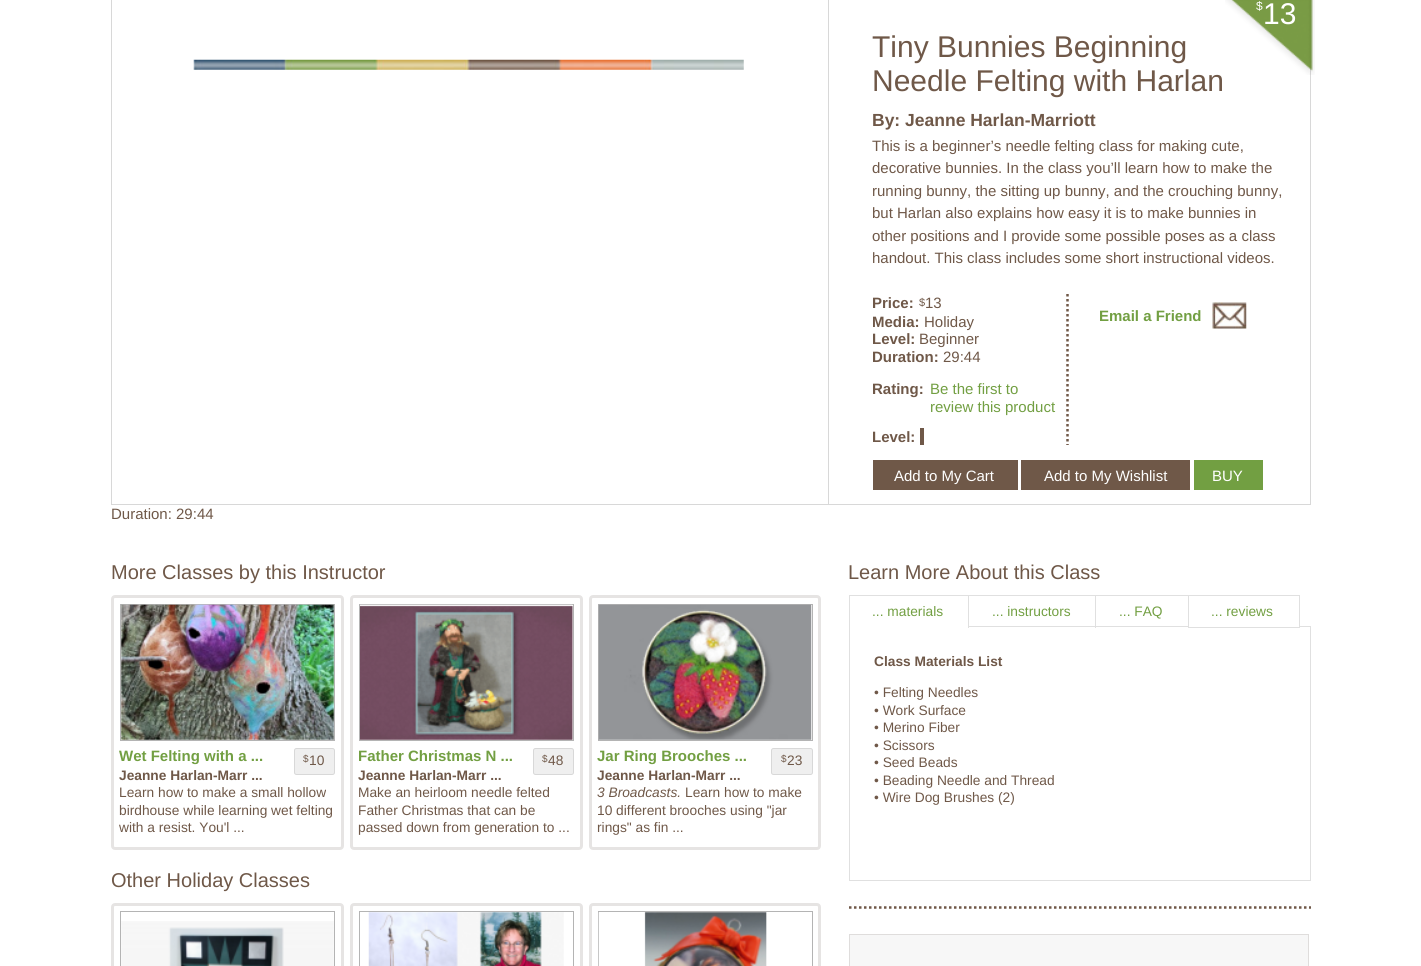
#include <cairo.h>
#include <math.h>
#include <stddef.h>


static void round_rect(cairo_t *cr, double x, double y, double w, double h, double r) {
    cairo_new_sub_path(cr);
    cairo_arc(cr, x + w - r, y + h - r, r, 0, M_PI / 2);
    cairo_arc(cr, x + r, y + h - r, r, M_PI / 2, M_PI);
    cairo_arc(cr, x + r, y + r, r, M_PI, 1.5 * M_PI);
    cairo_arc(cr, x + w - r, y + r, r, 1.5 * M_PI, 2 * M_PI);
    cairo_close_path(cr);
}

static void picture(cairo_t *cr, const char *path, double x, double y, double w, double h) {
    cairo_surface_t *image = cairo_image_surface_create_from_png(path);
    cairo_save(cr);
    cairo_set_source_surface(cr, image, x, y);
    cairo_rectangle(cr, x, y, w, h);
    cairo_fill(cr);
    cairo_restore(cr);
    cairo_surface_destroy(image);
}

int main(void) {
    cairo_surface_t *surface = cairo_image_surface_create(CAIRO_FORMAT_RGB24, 1421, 966);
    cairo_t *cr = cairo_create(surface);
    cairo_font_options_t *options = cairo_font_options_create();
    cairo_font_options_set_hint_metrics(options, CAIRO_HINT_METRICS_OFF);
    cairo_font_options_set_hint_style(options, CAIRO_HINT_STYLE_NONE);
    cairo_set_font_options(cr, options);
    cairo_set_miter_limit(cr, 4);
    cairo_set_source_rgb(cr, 1, 1, 1);
    cairo_paint(cr);
    cairo_set_source_rgb(cr, 0.847, 0.847, 0.847);
    cairo_rectangle(cr, 111, 504, 717, 1);
    cairo_fill(cr);
    cairo_rectangle(cr, 111, 0, 1, 505);
    cairo_fill(cr);
    picture(cr, "img1.png", 193, 59, 551, 11);
    cairo_rectangle(cr, 828.5, -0.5, 482, 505);
    cairo_set_line_width(cr, 1);
    cairo_stroke(cr);
    picture(cr, "img2.png", 1225, 0, 90, 75);
    cairo_select_font_face(cr, "Liberation Sans", CAIRO_FONT_SLANT_NORMAL, CAIRO_FONT_WEIGHT_NORMAL);
    cairo_set_font_size(cr, 12);
    cairo_set_source_rgb(cr, 1, 1, 1);
    cairo_move_to(cr, 1256, 10);
    cairo_show_text(cr, "$");
    cairo_set_font_size(cr, 30);
    cairo_move_to(cr, 1263, 24);
    cairo_show_text(cr, "13");
    cairo_set_source_rgb(cr, 0.435, 0.345, 0.282);
    cairo_move_to(cr, 872, 57);
    cairo_show_text(cr, "Tiny Bunnies Beginning");
    cairo_move_to(cr, 872, 91);
    cairo_show_text(cr, "Needle Felting with Harlan");
    cairo_select_font_face(cr, "Liberation Sans", CAIRO_FONT_SLANT_NORMAL, CAIRO_FONT_WEIGHT_BOLD);
    cairo_set_font_size(cr, 17.5);
    cairo_move_to(cr, 872, 126);
    cairo_show_text(cr, "By: Jeanne Harlan-Marriott");
    cairo_select_font_face(cr, "Liberation Sans", CAIRO_FONT_SLANT_NORMAL, CAIRO_FONT_WEIGHT_NORMAL);
    cairo_set_font_size(cr, 15);
    cairo_move_to(cr, 872, 151);
    cairo_show_text(cr, "This is a beginner’s needle felting class for making cute,");
    cairo_move_to(cr, 872, 173);
    cairo_show_text(cr, "decorative bunnies. In the class you’ll learn how to make the");
    cairo_move_to(cr, 872, 196);
    cairo_show_text(cr, "running bunny, the sitting up bunny, and the crouching bunny,");
    cairo_move_to(cr, 872, 218);
    cairo_show_text(cr, "but Harlan also explains how easy it is to make bunnies in");
    cairo_move_to(cr, 872, 241);
    cairo_show_text(cr, "other positions and I provide some possible poses as a class");
    cairo_move_to(cr, 872, 263);
    cairo_show_text(cr, "handout. This class includes some short instructional videos.");
    cairo_new_path(cr);
    cairo_move_to(cr, 1067.5, 294);
    cairo_line_to(cr, 1067.5, 445);
    cairo_set_line_width(cr, 2.5);
    cairo_set_dash(cr, (double[]){2.5, 2.5}, 2, 0);
    cairo_stroke(cr);
    cairo_save(cr);
    cairo_rectangle(cr, 873, 294, 193, 19);
    cairo_clip(cr);
    cairo_select_font_face(cr, "Liberation Sans", CAIRO_FONT_SLANT_NORMAL, CAIRO_FONT_WEIGHT_BOLD);
    cairo_move_to(cr, 872, 308);
    cairo_show_text(cr, "Price:");
    cairo_restore(cr);
    cairo_set_font_size(cr, 11);
    cairo_move_to(cr, 919, 306);
    cairo_show_text(cr, "$");
    cairo_set_font_size(cr, 15);
    cairo_move_to(cr, 925, 308);
    cairo_show_text(cr, "13");
    cairo_save(cr);
    cairo_rectangle(cr, 873, 294, 415, 151);
    cairo_clip(cr);
    cairo_select_font_face(cr, "Liberation Sans", CAIRO_FONT_SLANT_NORMAL, CAIRO_FONT_WEIGHT_BOLD);
    cairo_move_to(cr, 872, 327);
    cairo_show_text(cr, "Media:");
    cairo_restore(cr);
    cairo_move_to(cr, 924, 327);
    cairo_show_text(cr, "Holiday");
    cairo_save(cr);
    cairo_rectangle(cr, 873, 294, 415, 151);
    cairo_clip(cr);
    cairo_select_font_face(cr, "Liberation Sans", CAIRO_FONT_SLANT_NORMAL, CAIRO_FONT_WEIGHT_BOLD);
    cairo_move_to(cr, 872, 344);
    cairo_show_text(cr, "Level:");
    cairo_restore(cr);
    cairo_move_to(cr, 919, 344);
    cairo_show_text(cr, "Beginner");
    cairo_save(cr);
    cairo_rectangle(cr, 873, 294, 415, 151);
    cairo_clip(cr);
    cairo_select_font_face(cr, "Liberation Sans", CAIRO_FONT_SLANT_NORMAL, CAIRO_FONT_WEIGHT_BOLD);
    cairo_move_to(cr, 872, 362);
    cairo_show_text(cr, "Duration:");
    cairo_restore(cr);
    cairo_move_to(cr, 943, 362);
    cairo_show_text(cr, "29:44");
    cairo_save(cr);
    cairo_rectangle(cr, 873, 378, 193, 37);
    cairo_clip(cr);
    cairo_select_font_face(cr, "Liberation Sans", CAIRO_FONT_SLANT_NORMAL, CAIRO_FONT_WEIGHT_BOLD);
    cairo_move_to(cr, 872, 394);
    cairo_show_text(cr, "Rating:");
    cairo_restore(cr);
    cairo_set_source_rgb(cr, 0.447, 0.624, 0.259);
    cairo_move_to(cr, 930, 394);
    cairo_show_text(cr, "Be the first to");
    cairo_move_to(cr, 930, 412);
    cairo_show_text(cr, "review this product");
    cairo_save(cr);
    cairo_rectangle(cr, 873, 294, 415, 151);
    cairo_clip(cr);
    cairo_select_font_face(cr, "Liberation Sans", CAIRO_FONT_SLANT_NORMAL, CAIRO_FONT_WEIGHT_BOLD);
    cairo_set_source_rgb(cr, 0.435, 0.345, 0.282);
    cairo_move_to(cr, 872, 442);
    cairo_show_text(cr, "Level:");
    cairo_restore(cr);
    cairo_set_source_rgb(cr, 0.435, 0.345, 0.282);
    cairo_rectangle(cr, 920, 428, 4, 17);
    cairo_fill(cr);
    cairo_select_font_face(cr, "Liberation Sans", CAIRO_FONT_SLANT_NORMAL, CAIRO_FONT_WEIGHT_BOLD);
    cairo_set_source_rgb(cr, 0.447, 0.624, 0.259);
    cairo_move_to(cr, 1099, 321);
    cairo_show_text(cr, "Email a Friend");
    picture(cr, "img3.png", 1212, 302, 35, 27);
    cairo_set_source_rgb(cr, 0.435, 0.345, 0.282);
    cairo_rectangle(cr, 873, 460, 145, 30);
    cairo_fill(cr);
    cairo_select_font_face(cr, "Liberation Sans", CAIRO_FONT_SLANT_NORMAL, CAIRO_FONT_WEIGHT_NORMAL);
    cairo_set_source_rgb(cr, 1, 1, 1);
    cairo_move_to(cr, 894, 481);
    cairo_show_text(cr, "Add to My Cart");
    cairo_set_source_rgb(cr, 0.435, 0.345, 0.282);
    cairo_rectangle(cr, 1021, 460, 169, 30);
    cairo_fill(cr);
    cairo_set_source_rgb(cr, 1, 1, 1);
    cairo_move_to(cr, 1044, 481);
    cairo_show_text(cr, "Add to My Wishlist");
    cairo_set_source_rgb(cr, 0.447, 0.624, 0.259);
    cairo_rectangle(cr, 1194, 460, 69, 30);
    cairo_fill(cr);
    cairo_set_source_rgb(cr, 1, 1, 1);
    cairo_move_to(cr, 1212, 481);
    cairo_show_text(cr, "BUY");
    cairo_set_source_rgb(cr, 0.435, 0.345, 0.282);
    cairo_move_to(cr, 111, 519);
    cairo_show_text(cr, "Duration: 29:44");
    cairo_set_font_size(cr, 20);
    cairo_move_to(cr, 111, 579);
    cairo_show_text(cr, "More Classes by this Instructor");
    round_rect(cr, 112.5, 596.5, 230, 252, 2.5);
    cairo_set_source_rgb(cr, 0.902, 0.894, 0.89);
    cairo_set_line_width(cr, 3);
    cairo_set_dash(cr, NULL, 0, 0);
    cairo_stroke(cr);
    cairo_rectangle(cr, 120.5, 604.5, 214, 136);
    cairo_set_source_rgb(cr, 0.706, 0.706, 0.706);
    cairo_set_line_width(cr, 1);
    cairo_stroke(cr);
    picture(cr, "img4.png", 121, 604, 213, 136);
    cairo_select_font_face(cr, "Liberation Sans", CAIRO_FONT_SLANT_NORMAL, CAIRO_FONT_WEIGHT_BOLD);
    cairo_set_font_size(cr, 15);
    cairo_set_source_rgb(cr, 0.447, 0.624, 0.259);
    cairo_move_to(cr, 119, 761);
    cairo_show_text(cr, "Wet Felting with a ...");
    cairo_set_font_size(cr, 13.75);
    cairo_set_source_rgb(cr, 0.435, 0.345, 0.282);
    cairo_move_to(cr, 119, 780);
    cairo_show_text(cr, "Jeanne Harlan-Marr ...");
    cairo_set_source_rgb(cr, 0.937, 0.937, 0.937);
    round_rect(cr, 294.5, 748.5, 40, 26, 2);
    cairo_fill_preserve(cr);
    cairo_set_source_rgb(cr, 0.847, 0.847, 0.847);
    cairo_stroke(cr);
    cairo_select_font_face(cr, "Liberation Sans", CAIRO_FONT_SLANT_NORMAL, CAIRO_FONT_WEIGHT_NORMAL);
    cairo_set_font_size(cr, 10);
    cairo_set_source_rgb(cr, 0.435, 0.345, 0.282);
    cairo_move_to(cr, 303, 762);
    cairo_show_text(cr, "$");
    cairo_set_font_size(cr, 13.75);
    cairo_move_to(cr, 309, 765);
    cairo_show_text(cr, "10");
    cairo_move_to(cr, 119, 797);
    cairo_show_text(cr, "Learn how to make a small hollow");
    cairo_move_to(cr, 119, 815);
    cairo_show_text(cr, "birdhouse while learning wet felting");
    cairo_move_to(cr, 119, 832);
    cairo_show_text(cr, "with a resist. You'l ...");
    round_rect(cr, 351.5, 596.5, 230, 252, 2.5);
    cairo_set_source_rgb(cr, 0.902, 0.894, 0.89);
    cairo_set_line_width(cr, 3);
    cairo_stroke(cr);
    cairo_rectangle(cr, 359.5, 604.5, 214, 136);
    cairo_set_source_rgb(cr, 0.706, 0.706, 0.706);
    cairo_set_line_width(cr, 1);
    cairo_stroke(cr);
    picture(cr, "img5.png", 360, 604, 213, 136);
    cairo_select_font_face(cr, "Liberation Sans", CAIRO_FONT_SLANT_NORMAL, CAIRO_FONT_WEIGHT_BOLD);
    cairo_set_font_size(cr, 15);
    cairo_set_source_rgb(cr, 0.447, 0.624, 0.259);
    cairo_move_to(cr, 358, 761);
    cairo_show_text(cr, "Father Christmas N ...");
    cairo_set_font_size(cr, 13.75);
    cairo_set_source_rgb(cr, 0.435, 0.345, 0.282);
    cairo_move_to(cr, 358, 780);
    cairo_show_text(cr, "Jeanne Harlan-Marr ...");
    cairo_set_source_rgb(cr, 0.937, 0.937, 0.937);
    round_rect(cr, 533.5, 748.5, 40, 26, 2);
    cairo_fill_preserve(cr);
    cairo_set_source_rgb(cr, 0.847, 0.847, 0.847);
    cairo_stroke(cr);
    cairo_select_font_face(cr, "Liberation Sans", CAIRO_FONT_SLANT_NORMAL, CAIRO_FONT_WEIGHT_NORMAL);
    cairo_set_font_size(cr, 10);
    cairo_set_source_rgb(cr, 0.435, 0.345, 0.282);
    cairo_move_to(cr, 542, 762);
    cairo_show_text(cr, "$");
    cairo_set_font_size(cr, 13.75);
    cairo_move_to(cr, 548, 765);
    cairo_show_text(cr, "48");
    cairo_move_to(cr, 358, 797);
    cairo_show_text(cr, "Make an heirloom needle felted");
    cairo_move_to(cr, 358, 815);
    cairo_show_text(cr, "Father Christmas that can be");
    cairo_move_to(cr, 358, 832);
    cairo_show_text(cr, "passed down from generation to ...");
    round_rect(cr, 590.5, 596.5, 229, 252, 2.5);
    cairo_set_source_rgb(cr, 0.902, 0.894, 0.89);
    cairo_set_line_width(cr, 3);
    cairo_stroke(cr);
    cairo_rectangle(cr, 598.5, 604.5, 214, 136);
    cairo_set_source_rgb(cr, 0.706, 0.706, 0.706);
    cairo_set_line_width(cr, 1);
    cairo_stroke(cr);
    picture(cr, "img6.png", 598, 604, 214, 136);
    cairo_select_font_face(cr, "Liberation Sans", CAIRO_FONT_SLANT_NORMAL, CAIRO_FONT_WEIGHT_BOLD);
    cairo_set_font_size(cr, 15);
    cairo_set_source_rgb(cr, 0.447, 0.624, 0.259);
    cairo_move_to(cr, 597, 761);
    cairo_show_text(cr, "Jar Ring Brooches ...");
    cairo_set_font_size(cr, 13.75);
    cairo_set_source_rgb(cr, 0.435, 0.345, 0.282);
    cairo_move_to(cr, 597, 780);
    cairo_show_text(cr, "Jeanne Harlan-Marr ...");
    cairo_set_source_rgb(cr, 0.937, 0.937, 0.937);
    round_rect(cr, 771.5, 748.5, 41, 26, 2);
    cairo_fill_preserve(cr);
    cairo_set_source_rgb(cr, 0.847, 0.847, 0.847);
    cairo_stroke(cr);
    cairo_select_font_face(cr, "Liberation Sans", CAIRO_FONT_SLANT_NORMAL, CAIRO_FONT_WEIGHT_NORMAL);
    cairo_set_font_size(cr, 10);
    cairo_set_source_rgb(cr, 0.435, 0.345, 0.282);
    cairo_move_to(cr, 781, 762);
    cairo_show_text(cr, "$");
    cairo_set_font_size(cr, 13.75);
    cairo_move_to(cr, 787, 765);
    cairo_show_text(cr, "23");
    cairo_select_font_face(cr, "Liberation Sans", CAIRO_FONT_SLANT_ITALIC, CAIRO_FONT_WEIGHT_NORMAL);
    cairo_move_to(cr, 597, 797);
    cairo_show_text(cr, "3 Broadcasts.");
    cairo_select_font_face(cr, "Liberation Sans", CAIRO_FONT_SLANT_NORMAL, CAIRO_FONT_WEIGHT_NORMAL);
    cairo_move_to(cr, 685, 797);
    cairo_show_text(cr, "Learn how to make");
    cairo_move_to(cr, 597, 815);
    cairo_show_text(cr, "10 different brooches using \"jar");
    cairo_move_to(cr, 597, 832);
    cairo_show_text(cr, "rings\" as fin ...");
    cairo_set_font_size(cr, 20);
    cairo_move_to(cr, 111, 887);
    cairo_show_text(cr, "Other Holiday Classes");
    round_rect(cr, 112.5, 904.5, 230, 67, 2.5);
    cairo_set_source_rgb(cr, 0.902, 0.894, 0.89);
    cairo_set_line_width(cr, 3);
    cairo_stroke(cr);
    cairo_rectangle(cr, 120.5, 911.5, 214, 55);
    cairo_set_source_rgb(cr, 0.706, 0.706, 0.706);
    cairo_set_line_width(cr, 1);
    cairo_stroke(cr);
    picture(cr, "img7.png", 121, 921, 213, 45);
    round_rect(cr, 351.5, 904.5, 230, 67, 2.5);
    cairo_set_source_rgb(cr, 0.902, 0.894, 0.89);
    cairo_set_line_width(cr, 3);
    cairo_stroke(cr);
    cairo_rectangle(cr, 359.5, 911.5, 214, 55);
    cairo_set_source_rgb(cr, 0.706, 0.706, 0.706);
    cairo_set_line_width(cr, 1);
    cairo_stroke(cr);
    picture(cr, "img8.png", 368, 912, 196, 54);
    round_rect(cr, 590.5, 904.5, 229, 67, 2.5);
    cairo_set_source_rgb(cr, 0.902, 0.894, 0.89);
    cairo_set_line_width(cr, 3);
    cairo_stroke(cr);
    cairo_rectangle(cr, 598.5, 911.5, 214, 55);
    cairo_set_source_rgb(cr, 0.706, 0.706, 0.706);
    cairo_set_line_width(cr, 1);
    cairo_stroke(cr);
    picture(cr, "img9.png", 598, 912, 169, 54);
    cairo_set_source_rgb(cr, 0.435, 0.345, 0.282);
    cairo_move_to(cr, 848, 579);
    cairo_show_text(cr, "Learn More About this Class");
    cairo_new_path(cr);
    cairo_move_to(cr, 849, 907.5);
    cairo_line_to(cr, 1311, 907.5);
    cairo_set_line_width(cr, 2.5);
    cairo_set_dash(cr, (double[]){2.5, 2.5}, 2, 0);
    cairo_stroke(cr);
    cairo_rectangle(cr, 849.5, 626.5, 461, 254);
    cairo_set_source_rgb(cr, 0.878, 0.878, 0.878);
    cairo_set_line_width(cr, 1);
    cairo_set_dash(cr, NULL, 0, 0);
    cairo_stroke(cr);
    cairo_set_source_rgb(cr, 1, 1, 1);
    cairo_rectangle(cr, 850, 626, 118, 1);
    cairo_fill(cr);
    cairo_set_source_rgb(cr, 0.878, 0.878, 0.878);
    cairo_rectangle(cr, 849, 595, 339, 1);
    cairo_fill(cr);
    cairo_rectangle(cr, 849, 595, 1, 33);
    cairo_fill(cr);
    cairo_set_font_size(cr, 13.75);
    cairo_set_source_rgb(cr, 0.447, 0.624, 0.259);
    cairo_move_to(cr, 872, 616);
    cairo_show_text(cr, "... materials");
    cairo_set_source_rgb(cr, 1, 1, 1);
    cairo_rectangle(cr, 969, 626, 126, 1);
    cairo_fill(cr);
    cairo_set_source_rgb(cr, 0.878, 0.878, 0.878);
    cairo_rectangle(cr, 968, 626, 127, 1);
    cairo_fill(cr);
    cairo_rectangle(cr, 968, 595, 1, 33);
    cairo_fill(cr);
    cairo_set_source_rgb(cr, 0.447, 0.624, 0.259);
    cairo_move_to(cr, 992, 616);
    cairo_show_text(cr, "... instructors");
    cairo_set_source_rgb(cr, 1, 1, 1);
    cairo_rectangle(cr, 1096, 626, 92, 1);
    cairo_fill(cr);
    cairo_set_source_rgb(cr, 0.878, 0.878, 0.878);
    cairo_rectangle(cr, 1095, 626, 93, 1);
    cairo_fill(cr);
    cairo_rectangle(cr, 1095, 595, 1, 33);
    cairo_fill(cr);
    cairo_set_source_rgb(cr, 0.447, 0.624, 0.259);
    cairo_move_to(cr, 1119, 616);
    cairo_show_text(cr, "... FAQ");
    cairo_set_source_rgb(cr, 1, 1, 1);
    cairo_rectangle(cr, 1189, 626, 110, 1);
    cairo_fill(cr);
    cairo_rectangle(cr, 1188.5, 595.5, 111, 32);
    cairo_set_source_rgb(cr, 0.878, 0.878, 0.878);
    cairo_stroke(cr);
    cairo_set_source_rgb(cr, 0.447, 0.624, 0.259);
    cairo_move_to(cr, 1211, 616);
    cairo_show_text(cr, "... reviews");
    cairo_select_font_face(cr, "Liberation Sans", CAIRO_FONT_SLANT_NORMAL, CAIRO_FONT_WEIGHT_BOLD);
    cairo_set_source_rgb(cr, 0.435, 0.345, 0.282);
    cairo_move_to(cr, 874, 666);
    cairo_show_text(cr, "Class Materials List");
    cairo_select_font_face(cr, "Liberation Sans", CAIRO_FONT_SLANT_NORMAL, CAIRO_FONT_WEIGHT_NORMAL);
    cairo_move_to(cr, 874, 697);
    cairo_show_text(cr, "• Felting Needles");
    cairo_move_to(cr, 874, 715);
    cairo_show_text(cr, "• Work Surface");
    cairo_move_to(cr, 874, 732);
    cairo_show_text(cr, "• Merino Fiber");
    cairo_move_to(cr, 874, 750);
    cairo_show_text(cr, "• Scissors");
    cairo_move_to(cr, 874, 767);
    cairo_show_text(cr, "• Seed Beads");
    cairo_move_to(cr, 874, 785);
    cairo_show_text(cr, "• Beading Needle and Thread");
    cairo_move_to(cr, 874, 802);
    cairo_show_text(cr, "• Wire Dog Brushes (2)");
    cairo_set_source_rgb(cr, 0.965, 0.965, 0.965);
    cairo_rectangle(cr, 849.5, 934.5, 459, 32);
    cairo_fill_preserve(cr);
    cairo_set_source_rgb(cr, 0.875, 0.867, 0.863);
    cairo_stroke(cr);
    cairo_surface_write_to_png(surface, "page.png");
    cairo_font_options_destroy(options);
    cairo_destroy(cr);
    cairo_surface_destroy(surface);
    return 0;
}
